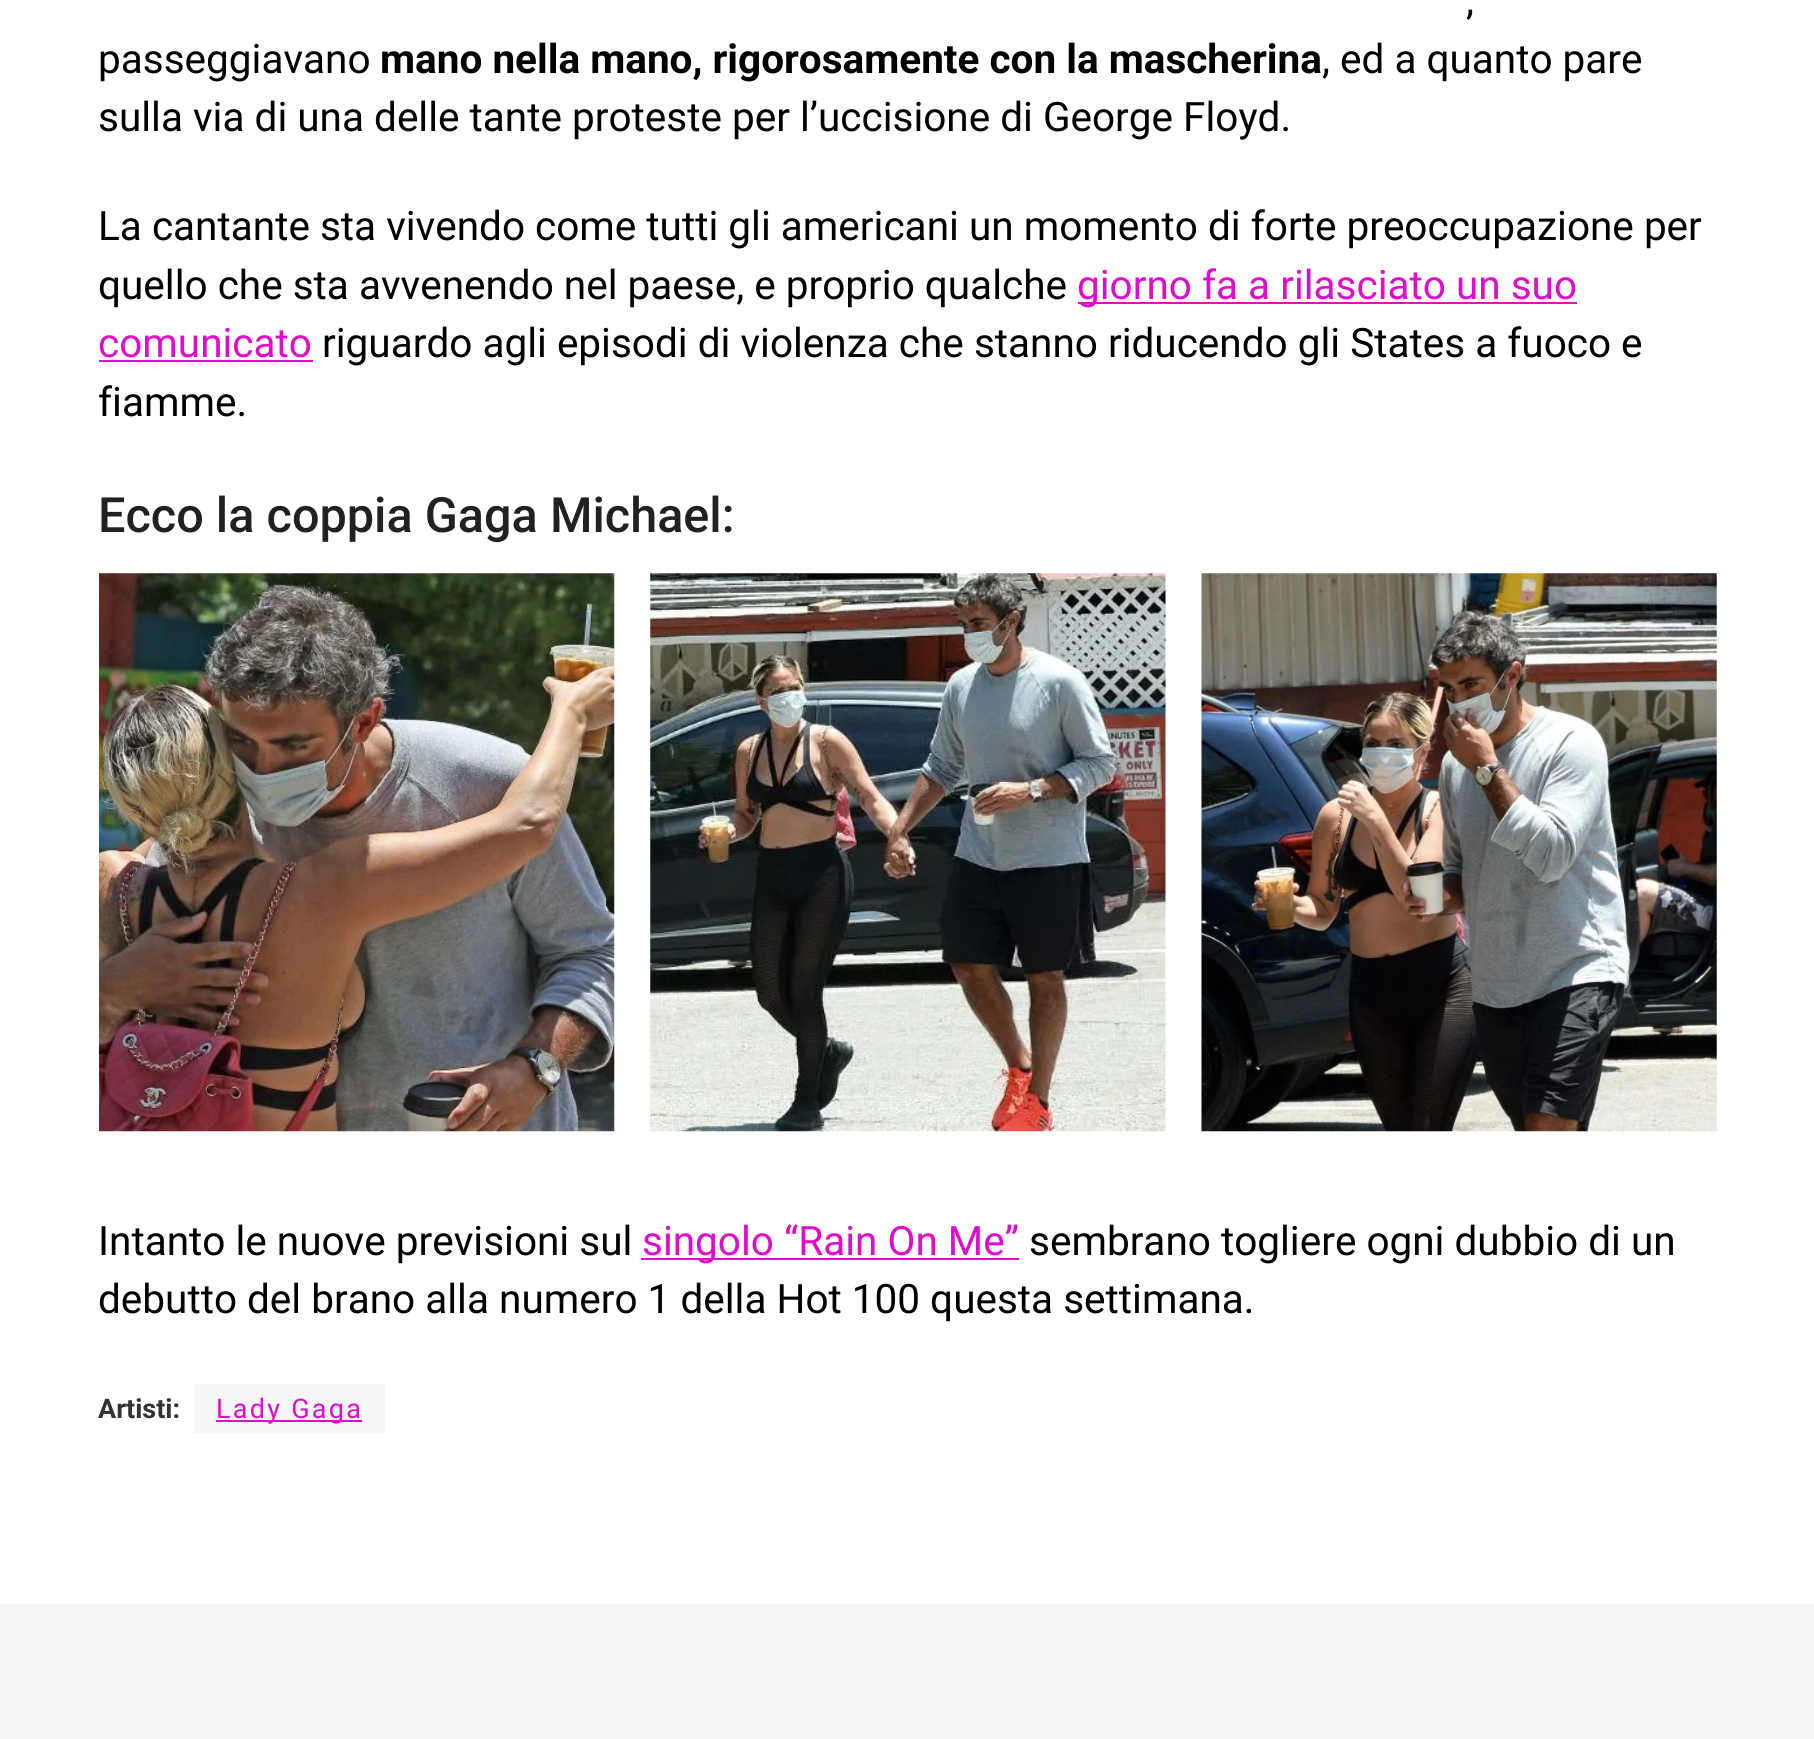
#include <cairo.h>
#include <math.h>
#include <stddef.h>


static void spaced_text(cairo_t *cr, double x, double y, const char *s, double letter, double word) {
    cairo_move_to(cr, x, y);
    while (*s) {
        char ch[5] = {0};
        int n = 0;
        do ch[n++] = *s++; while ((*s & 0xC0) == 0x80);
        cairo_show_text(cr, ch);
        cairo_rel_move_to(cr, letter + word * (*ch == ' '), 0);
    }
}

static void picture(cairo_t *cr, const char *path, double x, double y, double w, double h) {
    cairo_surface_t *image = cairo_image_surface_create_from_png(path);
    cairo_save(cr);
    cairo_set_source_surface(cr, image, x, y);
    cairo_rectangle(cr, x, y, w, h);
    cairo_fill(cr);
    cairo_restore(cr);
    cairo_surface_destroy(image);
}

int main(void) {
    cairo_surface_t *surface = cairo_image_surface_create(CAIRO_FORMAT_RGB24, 1814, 1739);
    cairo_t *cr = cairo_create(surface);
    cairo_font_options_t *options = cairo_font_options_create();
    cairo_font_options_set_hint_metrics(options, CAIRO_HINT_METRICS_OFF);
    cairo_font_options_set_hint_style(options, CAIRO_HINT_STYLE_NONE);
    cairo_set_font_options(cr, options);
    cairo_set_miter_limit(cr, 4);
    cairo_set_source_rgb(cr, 1, 1, 1);
    cairo_paint(cr);
    cairo_select_font_face(cr, "Roboto", CAIRO_FONT_SLANT_NORMAL, CAIRO_FONT_WEIGHT_NORMAL);
    cairo_set_font_size(cr, 40.5);
    cairo_set_source_rgb(cr, 0, 0, 0);
    cairo_move_to(cr, 1466, 14);
    cairo_show_text(cr, ",");
    cairo_move_to(cr, 98, 73);
    cairo_show_text(cr, "passeggiavano");
    cairo_select_font_face(cr, "Roboto", CAIRO_FONT_SLANT_NORMAL, CAIRO_FONT_WEIGHT_BOLD);
    cairo_move_to(cr, 380, 73);
    cairo_show_text(cr, "mano nella mano, rigorosamente con la mascherina");
    cairo_select_font_face(cr, "Roboto", CAIRO_FONT_SLANT_NORMAL, CAIRO_FONT_WEIGHT_NORMAL);
    cairo_move_to(cr, 1322, 73);
    cairo_show_text(cr, ", ed a quanto pare");
    cairo_move_to(cr, 98, 131);
    cairo_show_text(cr, "sulla via di una delle tante proteste per l’uccisione di George Floyd.");
    cairo_move_to(cr, 98, 240);
    cairo_show_text(cr, "La cantante sta vivendo come tutti gli americani un momento di forte preoccupazione per");
    cairo_move_to(cr, 98, 299);
    cairo_show_text(cr, "quello che sta avvenendo nel paese, e proprio qualche");
    cairo_set_source_rgb(cr, 0.878, 0.043, 0.796);
    cairo_rectangle(cr, 1078, 302, 499, 2);
    cairo_fill(cr);
    cairo_move_to(cr, 1077, 299);
    cairo_show_text(cr, "giorno fa a rilasciato un suo");
    cairo_move_to(cr, 98, 357);
    cairo_show_text(cr, "comunicato");
    cairo_rectangle(cr, 99, 360, 214, 2);
    cairo_fill(cr);
    cairo_set_source_rgb(cr, 0, 0, 0);
    cairo_move_to(cr, 322, 357);
    cairo_show_text(cr, "riguardo agli episodi di violenza che stanno riducendo gli States a fuoco e");
    cairo_move_to(cr, 98, 416);
    cairo_show_text(cr, "fiamme.");
    cairo_select_font_face(cr, "Roboto Medium", CAIRO_FONT_SLANT_NORMAL, CAIRO_FONT_WEIGHT_NORMAL);
    cairo_set_font_size(cr, 48.6);
    cairo_set_source_rgb(cr, 0.129, 0.129, 0.129);
    cairo_move_to(cr, 98, 532);
    cairo_show_text(cr, "Ecco la coppia Gaga Michael:");
    picture(cr, "img1.png", 99, 573, 516, 559);
    picture(cr, "img2.png", 650, 573, 516, 559);
    picture(cr, "img3.png", 1201, 573, 516, 559);
    cairo_select_font_face(cr, "Roboto", CAIRO_FONT_SLANT_NORMAL, CAIRO_FONT_WEIGHT_NORMAL);
    cairo_set_font_size(cr, 40.5);
    cairo_set_source_rgb(cr, 0, 0, 0);
    cairo_move_to(cr, 98, 1255);
    cairo_show_text(cr, "Intanto le nuove previsioni sul");
    cairo_set_source_rgb(cr, 0.878, 0.043, 0.796);
    cairo_rectangle(cr, 641, 1258, 378, 2);
    cairo_fill(cr);
    cairo_move_to(cr, 642, 1255);
    cairo_show_text(cr, "singolo “Rain On Me”");
    cairo_set_source_rgb(cr, 0, 0, 0);
    cairo_move_to(cr, 1029, 1255);
    cairo_show_text(cr, "sembrano togliere ogni dubbio di un");
    cairo_move_to(cr, 98, 1313);
    cairo_show_text(cr, "debutto del brano alla numero 1 della Hot 100 questa settimana.");
    cairo_select_font_face(cr, "Roboto", CAIRO_FONT_SLANT_NORMAL, CAIRO_FONT_WEIGHT_BOLD);
    cairo_set_font_size(cr, 27);
    cairo_set_source_rgb(cr, 0.2, 0.2, 0.2);
    cairo_move_to(cr, 98, 1418);
    cairo_show_text(cr, "Artisti:");
    cairo_set_source_rgb(cr, 0.961, 0.961, 0.961);
    cairo_rectangle(cr, 194, 1384, 191, 49);
    cairo_fill(cr);
    cairo_set_source_rgb(cr, 0.878, 0.043, 0.796);
    cairo_rectangle(cr, 216, 1420, 146, 2);
    cairo_fill(cr);
    cairo_select_font_face(cr, "Roboto", CAIRO_FONT_SLANT_NORMAL, CAIRO_FONT_WEIGHT_NORMAL);
    spaced_text(cr, 216, 1418, "Lady Gaga", 2.25, 0);
    cairo_set_source_rgb(cr, 0.961, 0.961, 0.961);
    cairo_rectangle(cr, 0, 1604, 1814, 135);
    cairo_fill(cr);
    cairo_surface_write_to_png(surface, "page.png");
    cairo_font_options_destroy(options);
    cairo_destroy(cr);
    cairo_surface_destroy(surface);
    return 0;
}
